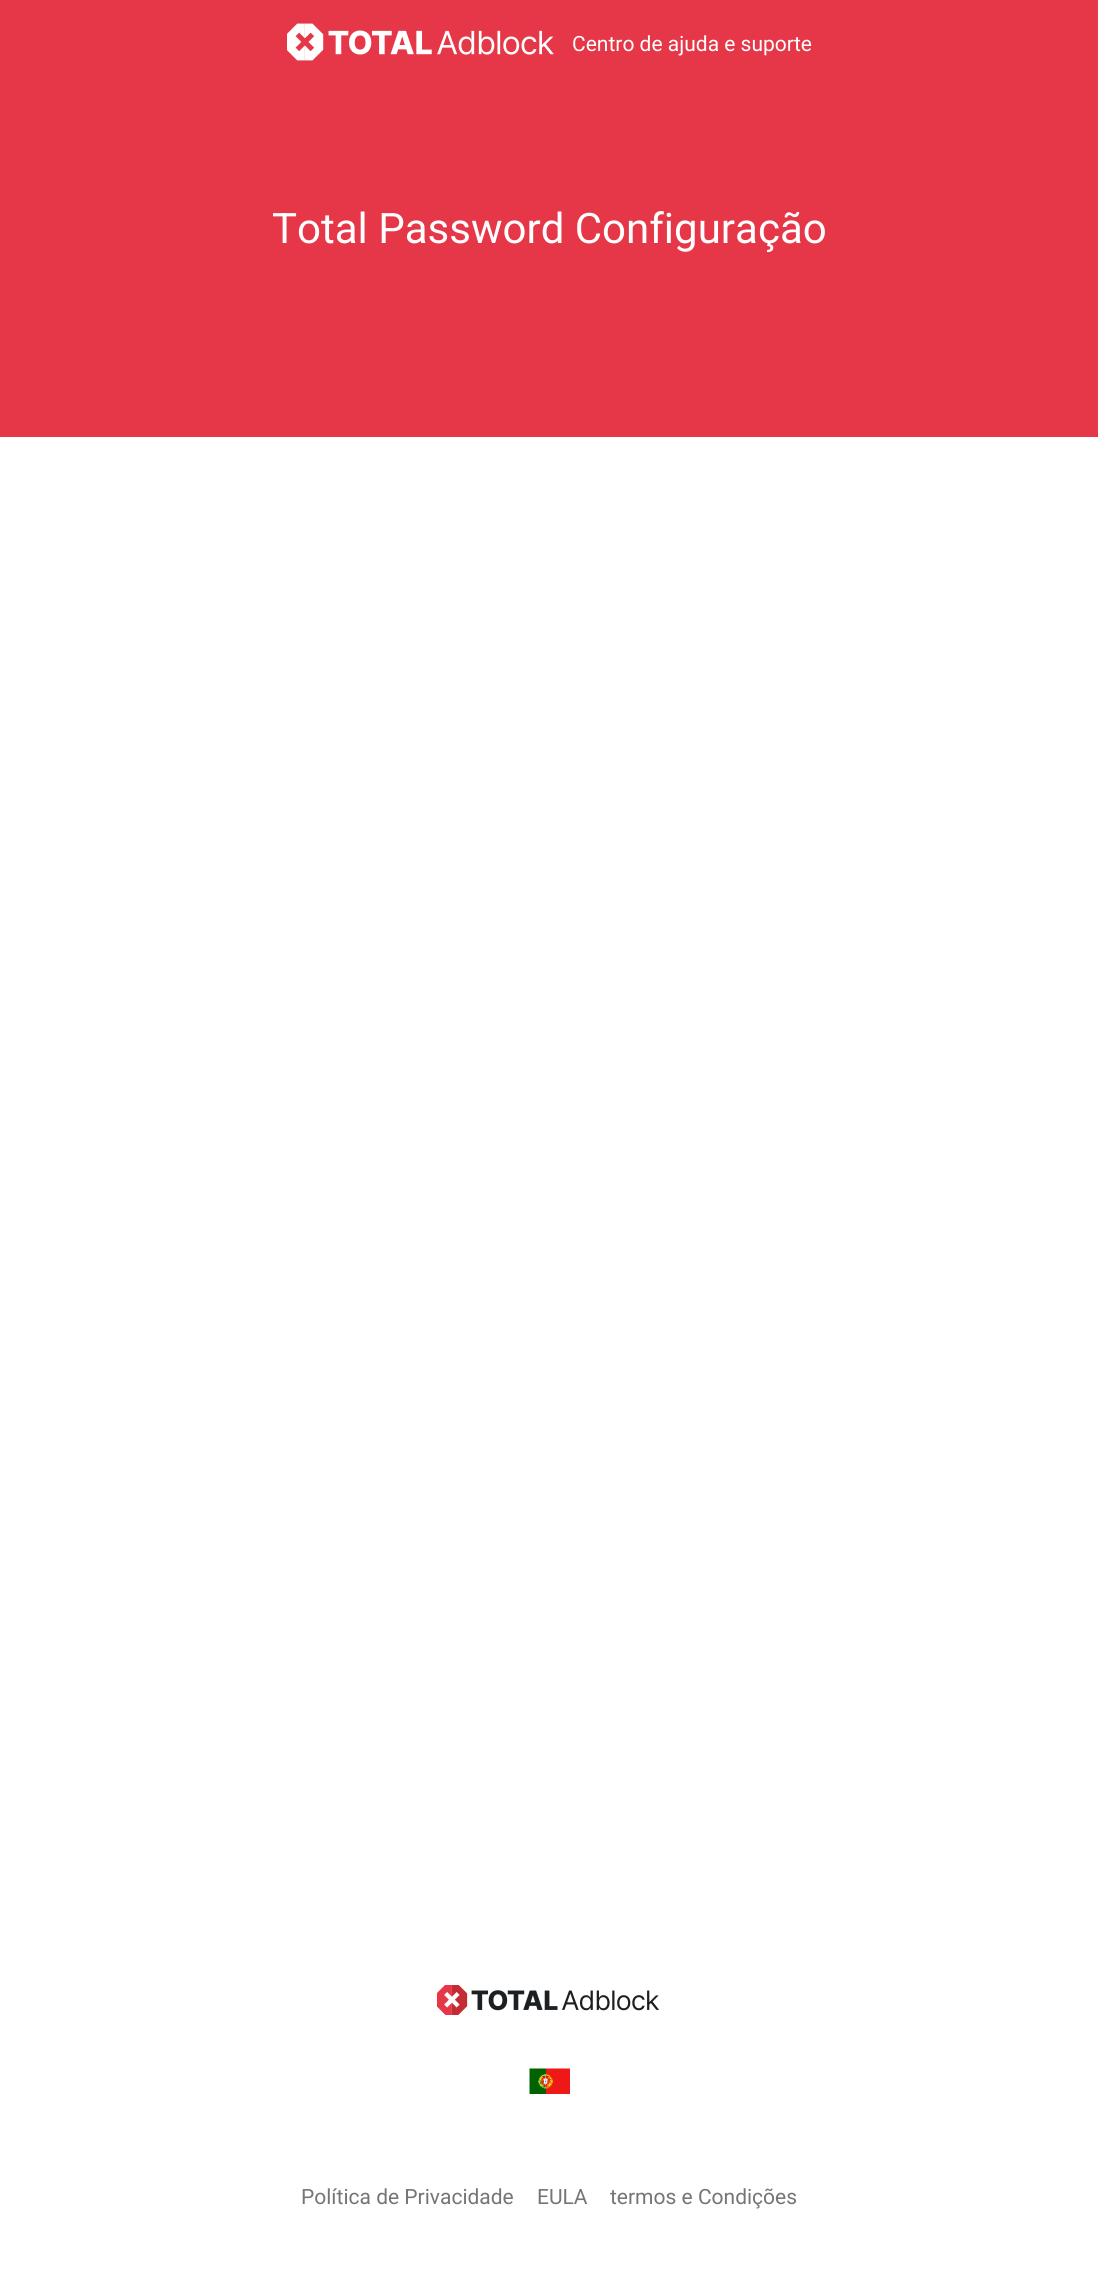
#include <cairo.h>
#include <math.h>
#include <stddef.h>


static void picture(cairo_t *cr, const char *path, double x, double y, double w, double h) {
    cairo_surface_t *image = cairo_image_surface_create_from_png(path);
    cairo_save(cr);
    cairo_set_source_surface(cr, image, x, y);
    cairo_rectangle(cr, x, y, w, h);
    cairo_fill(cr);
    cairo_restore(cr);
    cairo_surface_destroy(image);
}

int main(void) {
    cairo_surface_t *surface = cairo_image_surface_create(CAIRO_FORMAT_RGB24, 1098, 2279);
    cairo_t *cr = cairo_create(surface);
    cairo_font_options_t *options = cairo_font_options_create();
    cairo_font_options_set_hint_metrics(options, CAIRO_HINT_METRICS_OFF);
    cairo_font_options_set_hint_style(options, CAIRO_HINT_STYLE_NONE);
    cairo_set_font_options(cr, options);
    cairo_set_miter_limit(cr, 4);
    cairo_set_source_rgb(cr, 1, 1, 1);
    cairo_paint(cr);
    cairo_set_source_rgb(cr, 0.902, 0.216, 0.282);
    cairo_rectangle(cr, 0, 0, 1098, 437);
    cairo_fill(cr);
    picture(cr, "img1.png", 287, 23, 267, 38);
    cairo_select_font_face(cr, "Roboto", CAIRO_FONT_SLANT_NORMAL, CAIRO_FONT_WEIGHT_NORMAL);
    cairo_set_font_size(cr, 21);
    cairo_set_source_rgb(cr, 1, 1, 1);
    cairo_move_to(cr, 572, 51);
    cairo_show_text(cr, "Centro de ajuda e suporte");
    cairo_set_font_size(cr, 42);
    cairo_move_to(cr, 272, 243);
    cairo_show_text(cr, "Total Password Configuração");
    picture(cr, "img2.png", 437, 1985, 222, 30);
    picture(cr, "img3.png", 529, 2068, 41, 26);
    cairo_set_font_size(cr, 21);
    cairo_set_source_rgb(cr, 0.459, 0.459, 0.459);
    cairo_move_to(cr, 301, 2204);
    cairo_show_text(cr, "Política de Privacidade");
    cairo_move_to(cr, 537, 2204);
    cairo_show_text(cr, "EULA");
    cairo_move_to(cr, 610, 2204);
    cairo_show_text(cr, "termos e Condições");
    cairo_surface_write_to_png(surface, "page.png");
    cairo_font_options_destroy(options);
    cairo_destroy(cr);
    cairo_surface_destroy(surface);
    return 0;
}
